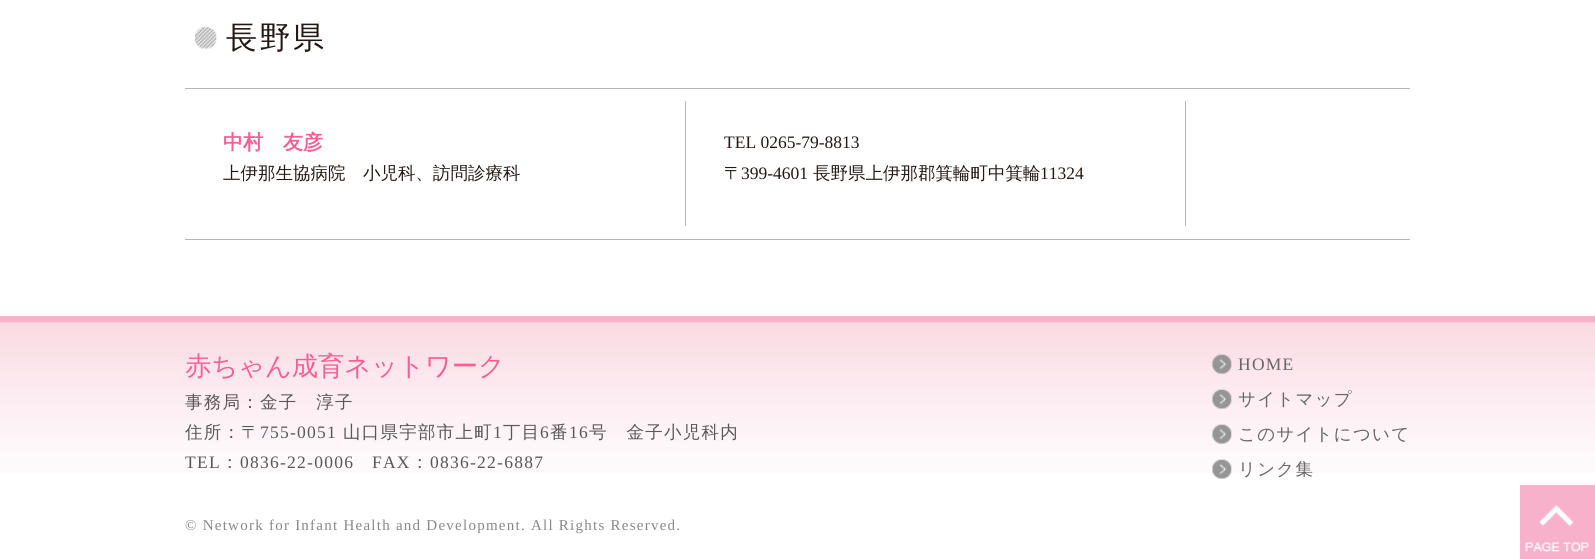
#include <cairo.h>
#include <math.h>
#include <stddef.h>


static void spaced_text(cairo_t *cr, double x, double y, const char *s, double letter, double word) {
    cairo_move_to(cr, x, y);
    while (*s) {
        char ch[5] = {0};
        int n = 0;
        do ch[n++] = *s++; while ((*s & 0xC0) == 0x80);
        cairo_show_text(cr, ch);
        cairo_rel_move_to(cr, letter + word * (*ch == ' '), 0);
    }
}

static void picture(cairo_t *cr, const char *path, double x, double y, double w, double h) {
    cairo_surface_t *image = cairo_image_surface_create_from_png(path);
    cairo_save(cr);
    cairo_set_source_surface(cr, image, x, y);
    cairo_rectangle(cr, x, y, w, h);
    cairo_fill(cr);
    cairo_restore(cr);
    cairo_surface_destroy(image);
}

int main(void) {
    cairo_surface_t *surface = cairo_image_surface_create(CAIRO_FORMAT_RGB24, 1595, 559);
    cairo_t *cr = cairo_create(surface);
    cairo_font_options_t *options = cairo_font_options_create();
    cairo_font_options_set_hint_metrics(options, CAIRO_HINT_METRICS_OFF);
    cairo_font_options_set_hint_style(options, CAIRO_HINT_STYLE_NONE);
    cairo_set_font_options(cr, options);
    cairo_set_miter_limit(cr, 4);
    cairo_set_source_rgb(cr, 1, 1, 1);
    cairo_paint(cr);
    picture(cr, "img1.png", 195, 27, 22, 22);
    cairo_select_font_face(cr, "WenQuanYi Zen Hei Medium", CAIRO_FONT_SLANT_NORMAL, CAIRO_FONT_WEIGHT_NORMAL);
    cairo_set_font_size(cr, 31);
    cairo_set_source_rgb(cr, 0.137, 0.094, 0.082);
    spaced_text(cr, 226, 48, "長野県", 2.5, 0);
    cairo_set_source_rgb(cr, 0.706, 0.706, 0.71);
    cairo_rectangle(cr, 185, 239, 1225, 1);
    cairo_fill(cr);
    cairo_rectangle(cr, 185, 88, 1225, 1);
    cairo_fill(cr);
    cairo_select_font_face(cr, "WenQuanYi Zen Hei", CAIRO_FONT_SLANT_NORMAL, CAIRO_FONT_WEIGHT_BOLD);
    cairo_set_font_size(cr, 20);
    cairo_set_source_rgb(cr, 0.957, 0.376, 0.584);
    cairo_move_to(cr, 223, 149);
    cairo_show_text(cr, "中村　友彦");
    cairo_select_font_face(cr, "WenQuanYi Zen Hei Medium", CAIRO_FONT_SLANT_NORMAL, CAIRO_FONT_WEIGHT_NORMAL);
    cairo_set_font_size(cr, 17.5);
    cairo_set_source_rgb(cr, 0.137, 0.094, 0.082);
    cairo_move_to(cr, 223, 179);
    cairo_show_text(cr, "上伊那生協病院　小児科、訪問診療科");
    cairo_set_source_rgb(cr, 0.706, 0.706, 0.71);
    cairo_rectangle(cr, 685, 101, 1, 125);
    cairo_fill(cr);
    cairo_select_font_face(cr, "Liberation Serif", CAIRO_FONT_SLANT_NORMAL, CAIRO_FONT_WEIGHT_NORMAL);
    cairo_set_source_rgb(cr, 0.137, 0.094, 0.082);
    cairo_move_to(cr, 724, 148);
    cairo_show_text(cr, "TEL 0265-79-8813");
    cairo_select_font_face(cr, "WenQuanYi Zen Hei Medium", CAIRO_FONT_SLANT_NORMAL, CAIRO_FONT_WEIGHT_NORMAL);
    cairo_move_to(cr, 724, 179);
    cairo_show_text(cr, "〒");
    cairo_select_font_face(cr, "Liberation Serif", CAIRO_FONT_SLANT_NORMAL, CAIRO_FONT_WEIGHT_NORMAL);
    cairo_move_to(cr, 741, 179);
    cairo_show_text(cr, "399-4601");
    cairo_select_font_face(cr, "WenQuanYi Zen Hei Medium", CAIRO_FONT_SLANT_NORMAL, CAIRO_FONT_WEIGHT_NORMAL);
    cairo_move_to(cr, 813, 179);
    cairo_show_text(cr, "長野県上伊那郡箕輪町中箕輪");
    cairo_select_font_face(cr, "Liberation Serif", CAIRO_FONT_SLANT_NORMAL, CAIRO_FONT_WEIGHT_NORMAL);
    cairo_move_to(cr, 1040, 179);
    cairo_show_text(cr, "11324");
    cairo_set_source_rgb(cr, 0.706, 0.706, 0.71);
    cairo_rectangle(cr, 1185, 101, 1, 125);
    cairo_fill(cr);
    picture(cr, "img2.png", 0, 316, 1595, 157);
    cairo_select_font_face(cr, "WenQuanYi Zen Hei Medium", CAIRO_FONT_SLANT_NORMAL, CAIRO_FONT_WEIGHT_NORMAL);
    cairo_set_font_size(cr, 26.25);
    cairo_set_source_rgb(cr, 0.957, 0.376, 0.584);
    cairo_move_to(cr, 185, 375);
    cairo_show_text(cr, "赤ちゃん成育ネットワーク");
    picture(cr, "img3.png", 1212, 354, 20, 20);
    cairo_select_font_face(cr, "Liberation Serif", CAIRO_FONT_SLANT_NORMAL, CAIRO_FONT_WEIGHT_NORMAL);
    cairo_set_font_size(cr, 17.5);
    cairo_set_source_rgb(cr, 0.4, 0.4, 0.4);
    spaced_text(cr, 1238, 370, "HOME", 1.25, 0);
    picture(cr, "img4.png", 1212, 389, 20, 20);
    cairo_select_font_face(cr, "WenQuanYi Zen Hei Medium", CAIRO_FONT_SLANT_NORMAL, CAIRO_FONT_WEIGHT_NORMAL);
    spaced_text(cr, 1238, 405, "サイトマップ", 1.25, 0);
    picture(cr, "img5.png", 1212, 424, 20, 20);
    spaced_text(cr, 1238, 440, "このサイトについて", 1.25, 0);
    picture(cr, "img6.png", 1212, 459, 20, 20);
    spaced_text(cr, 1238, 475, "リンク集", 1.25, 0);
    cairo_set_source_rgb(cr, 0.349, 0.341, 0.341);
    spaced_text(cr, 185, 408, "事務局：金子　淳子", 1.25, 0);
    spaced_text(cr, 185, 438, "住所：〒", 1.25, 0);
    cairo_select_font_face(cr, "Liberation Serif", CAIRO_FONT_SLANT_NORMAL, CAIRO_FONT_WEIGHT_NORMAL);
    spaced_text(cr, 260, 438, "755-0051", 1.25, 0);
    cairo_select_font_face(cr, "WenQuanYi Zen Hei Medium", CAIRO_FONT_SLANT_NORMAL, CAIRO_FONT_WEIGHT_NORMAL);
    spaced_text(cr, 343, 438, "山口県宇部市上町", 1.25, 0);
    cairo_select_font_face(cr, "Liberation Serif", CAIRO_FONT_SLANT_NORMAL, CAIRO_FONT_WEIGHT_NORMAL);
    spaced_text(cr, 493, 438, "1", 1.25, 0);
    cairo_select_font_face(cr, "WenQuanYi Zen Hei Medium", CAIRO_FONT_SLANT_NORMAL, CAIRO_FONT_WEIGHT_NORMAL);
    spaced_text(cr, 503, 438, "丁目", 1.25, 0);
    cairo_select_font_face(cr, "Liberation Serif", CAIRO_FONT_SLANT_NORMAL, CAIRO_FONT_WEIGHT_NORMAL);
    spaced_text(cr, 540, 438, "6", 1.25, 0);
    cairo_select_font_face(cr, "WenQuanYi Zen Hei Medium", CAIRO_FONT_SLANT_NORMAL, CAIRO_FONT_WEIGHT_NORMAL);
    spaced_text(cr, 550, 438, "番", 1.25, 0);
    cairo_select_font_face(cr, "Liberation Serif", CAIRO_FONT_SLANT_NORMAL, CAIRO_FONT_WEIGHT_NORMAL);
    spaced_text(cr, 569, 438, "16", 1.25, 0);
    cairo_select_font_face(cr, "WenQuanYi Zen Hei Medium", CAIRO_FONT_SLANT_NORMAL, CAIRO_FONT_WEIGHT_NORMAL);
    spaced_text(cr, 589, 438, "号　金子小児科内", 1.25, 0);
    cairo_select_font_face(cr, "Liberation Serif", CAIRO_FONT_SLANT_NORMAL, CAIRO_FONT_WEIGHT_NORMAL);
    spaced_text(cr, 185, 468, "TEL", 1.25, 0);
    cairo_select_font_face(cr, "WenQuanYi Zen Hei Medium", CAIRO_FONT_SLANT_NORMAL, CAIRO_FONT_WEIGHT_NORMAL);
    spaced_text(cr, 221, 468, "：", 1.25, 0);
    cairo_select_font_face(cr, "Liberation Serif", CAIRO_FONT_SLANT_NORMAL, CAIRO_FONT_WEIGHT_NORMAL);
    spaced_text(cr, 240, 468, "0836-22-0006", 1.25, 0);
    spaced_text(cr, 372, 468, "FAX", 1.25, 0);
    cairo_select_font_face(cr, "WenQuanYi Zen Hei Medium", CAIRO_FONT_SLANT_NORMAL, CAIRO_FONT_WEIGHT_NORMAL);
    spaced_text(cr, 411, 468, "：", 1.25, 0);
    cairo_select_font_face(cr, "Liberation Serif", CAIRO_FONT_SLANT_NORMAL, CAIRO_FONT_WEIGHT_NORMAL);
    spaced_text(cr, 430, 468, "0836-22-6887", 1.25, 0);
    cairo_set_font_size(cr, 15);
    cairo_set_source_rgb(cr, 0.533, 0.533, 0.533);
    spaced_text(cr, 185, 530, "© Network for Infant Health and Development. All Rights Reserved.", 1.25, 0);
    picture(cr, "img7.png", 1520, 485, 75, 74);
    cairo_surface_write_to_png(surface, "page.png");
    cairo_font_options_destroy(options);
    cairo_destroy(cr);
    cairo_surface_destroy(surface);
    return 0;
}
